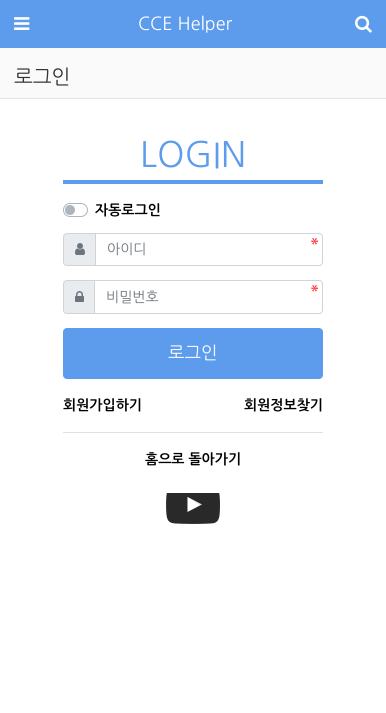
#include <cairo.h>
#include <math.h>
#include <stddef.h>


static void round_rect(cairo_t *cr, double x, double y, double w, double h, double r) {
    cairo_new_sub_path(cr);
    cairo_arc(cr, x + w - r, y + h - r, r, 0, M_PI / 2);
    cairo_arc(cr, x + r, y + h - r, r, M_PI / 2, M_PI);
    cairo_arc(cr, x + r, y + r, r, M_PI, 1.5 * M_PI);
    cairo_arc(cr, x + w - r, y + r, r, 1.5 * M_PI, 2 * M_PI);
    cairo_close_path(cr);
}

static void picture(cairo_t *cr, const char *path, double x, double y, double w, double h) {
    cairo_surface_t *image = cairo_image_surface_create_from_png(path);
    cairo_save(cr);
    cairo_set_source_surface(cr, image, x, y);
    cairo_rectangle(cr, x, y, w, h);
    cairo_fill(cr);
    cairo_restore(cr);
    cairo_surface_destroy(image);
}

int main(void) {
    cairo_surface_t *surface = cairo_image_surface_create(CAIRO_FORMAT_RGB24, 386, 713);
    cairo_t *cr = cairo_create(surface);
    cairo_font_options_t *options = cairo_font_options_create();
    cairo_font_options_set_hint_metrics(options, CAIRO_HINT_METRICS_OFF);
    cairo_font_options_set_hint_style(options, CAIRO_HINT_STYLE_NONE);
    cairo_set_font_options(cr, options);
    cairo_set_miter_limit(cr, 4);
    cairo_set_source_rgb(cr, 1, 1, 1);
    cairo_paint(cr);
    cairo_set_source_rgb(cr, 0.365, 0.612, 0.925);
    cairo_rectangle(cr, 0, 0, 386, 48);
    cairo_fill(cr);
    picture(cr, "img1.png", 14, 17, 16, 13);
    cairo_select_font_face(cr, "NanumGothic", CAIRO_FONT_SLANT_NORMAL, CAIRO_FONT_WEIGHT_NORMAL);
    cairo_set_font_size(cr, 18);
    cairo_set_source_rgb(cr, 1, 1, 1);
    cairo_move_to(cr, 138, 30);
    cairo_show_text(cr, "CCE Helper");
    picture(cr, "img2.png", 355, 15, 17, 18);
    cairo_set_source_rgb(cr, 0.98, 0.98, 0.98);
    cairo_rectangle(cr, 0, 48, 386, 50);
    cairo_fill(cr);
    cairo_set_source_rgb(cr, 0.871, 0.886, 0.902);
    cairo_rectangle(cr, 0, 98, 386, 1);
    cairo_fill(cr);
    cairo_set_font_size(cr, 20);
    cairo_set_source_rgb(cr, 0.2, 0.2, 0.2);
    cairo_move_to(cr, 14, 84);
    cairo_show_text(cr, "로그인");
    cairo_set_font_size(cr, 35);
    cairo_set_source_rgb(cr, 0.365, 0.612, 0.925);
    cairo_move_to(cr, 140, 167);
    cairo_show_text(cr, "LOGIN");
    cairo_rectangle(cr, 63, 180, 260, 4);
    cairo_fill(cr);
    round_rect(cr, 63.5, 203.5, 24, 13, 6.5);
    cairo_set_source_rgb(cr, 0.678, 0.71, 0.741);
    cairo_set_line_width(cr, 1);
    cairo_stroke(cr);
    cairo_select_font_face(cr, "NanumGothic", CAIRO_FONT_SLANT_NORMAL, CAIRO_FONT_WEIGHT_BOLD);
    cairo_set_font_size(cr, 14);
    cairo_set_source_rgb(cr, 0, 0, 0);
    cairo_move_to(cr, 95, 215);
    cairo_show_text(cr, "자동로그인");
    cairo_set_source_rgb(cr, 0.678, 0.71, 0.741);
    cairo_new_path(cr);
    cairo_arc(cr, 70, 210, 5, 0, 2 * M_PI);
    cairo_fill(cr);
    cairo_set_source_rgb(cr, 0.914, 0.925, 0.937);
    cairo_new_path(cr);
    cairo_move_to(cr, 67, 233.5);
    cairo_line_to(cr, 95.5, 233.5);
    cairo_line_to(cr, 95.5, 265.5);
    cairo_line_to(cr, 67, 265.5);
    cairo_curve_to(cr, 65, 265.5, 63.5, 264, 63.5, 262);
    cairo_line_to(cr, 63.5, 237);
    cairo_curve_to(cr, 63.5, 235, 65, 233.5, 67, 233.5);
    cairo_close_path(cr);
    cairo_fill_preserve(cr);
    cairo_set_source_rgb(cr, 0.808, 0.831, 0.855);
    cairo_stroke(cr);
    picture(cr, "img3.png", 75, 243, 10, 12);
    picture(cr, "img4.png", 311, 238, 7, 7);
    cairo_new_path(cr);
    cairo_move_to(cr, 95.5, 233.5);
    cairo_line_to(cr, 319, 233.5);
    cairo_curve_to(cr, 321, 233.5, 322.5, 235, 322.5, 237);
    cairo_line_to(cr, 322.5, 262);
    cairo_curve_to(cr, 322.5, 264, 321, 265.5, 319, 265.5);
    cairo_line_to(cr, 95.5, 265.5);
    cairo_close_path(cr);
    cairo_stroke(cr);
    cairo_select_font_face(cr, "NanumGothic", CAIRO_FONT_SLANT_NORMAL, CAIRO_FONT_WEIGHT_NORMAL);
    cairo_set_source_rgb(cr, 0.424, 0.459, 0.49);
    cairo_move_to(cr, 107, 254);
    cairo_show_text(cr, "아이디");
    cairo_set_source_rgb(cr, 0.914, 0.925, 0.937);
    cairo_new_path(cr);
    cairo_move_to(cr, 67, 280.5);
    cairo_line_to(cr, 94.5, 280.5);
    cairo_line_to(cr, 94.5, 313.5);
    cairo_line_to(cr, 67, 313.5);
    cairo_curve_to(cr, 65, 313.5, 63.5, 312, 63.5, 310);
    cairo_line_to(cr, 63.5, 284);
    cairo_curve_to(cr, 63.5, 282, 65, 280.5, 67, 280.5);
    cairo_close_path(cr);
    cairo_fill_preserve(cr);
    cairo_set_source_rgb(cr, 0.808, 0.831, 0.855);
    cairo_stroke(cr);
    picture(cr, "img5.png", 75, 291, 9, 11);
    picture(cr, "img4.png", 311, 285, 7, 7);
    cairo_new_path(cr);
    cairo_move_to(cr, 94.5, 280.5);
    cairo_line_to(cr, 319, 280.5);
    cairo_curve_to(cr, 321, 280.5, 322.5, 282, 322.5, 284);
    cairo_line_to(cr, 322.5, 310);
    cairo_curve_to(cr, 322.5, 312, 321, 313.5, 319, 313.5);
    cairo_line_to(cr, 94.5, 313.5);
    cairo_close_path(cr);
    cairo_stroke(cr);
    cairo_set_source_rgb(cr, 0.424, 0.459, 0.49);
    cairo_move_to(cr, 106, 302);
    cairo_show_text(cr, "비밀번호");
    cairo_set_source_rgb(cr, 0.365, 0.612, 0.925);
    round_rect(cr, 63.5, 328.5, 259, 50, 3.5);
    cairo_fill_preserve(cr);
    cairo_stroke(cr);
    cairo_set_font_size(cr, 17.5);
    cairo_set_source_rgb(cr, 1, 1, 1);
    cairo_move_to(cr, 168, 359);
    cairo_show_text(cr, "로그인");
    cairo_select_font_face(cr, "NanumGothic", CAIRO_FONT_SLANT_NORMAL, CAIRO_FONT_WEIGHT_BOLD);
    cairo_set_font_size(cr, 14);
    cairo_set_source_rgb(cr, 0, 0, 0);
    cairo_move_to(cr, 63, 410);
    cairo_show_text(cr, "회원가입하기");
    cairo_move_to(cr, 244, 410);
    cairo_show_text(cr, "회원정보찾기");
    cairo_set_source_rgb(cr, 0.871, 0.886, 0.902);
    cairo_rectangle(cr, 63, 432, 260, 1);
    cairo_fill(cr);
    cairo_set_source_rgb(cr, 0, 0, 0);
    cairo_move_to(cr, 145, 464);
    cairo_show_text(cr, "홈으로 돌아가기");
    picture(cr, "img6.png", 166, 493, 54, 31);
    cairo_surface_write_to_png(surface, "page.png");
    cairo_font_options_destroy(options);
    cairo_destroy(cr);
    cairo_surface_destroy(surface);
    return 0;
}
